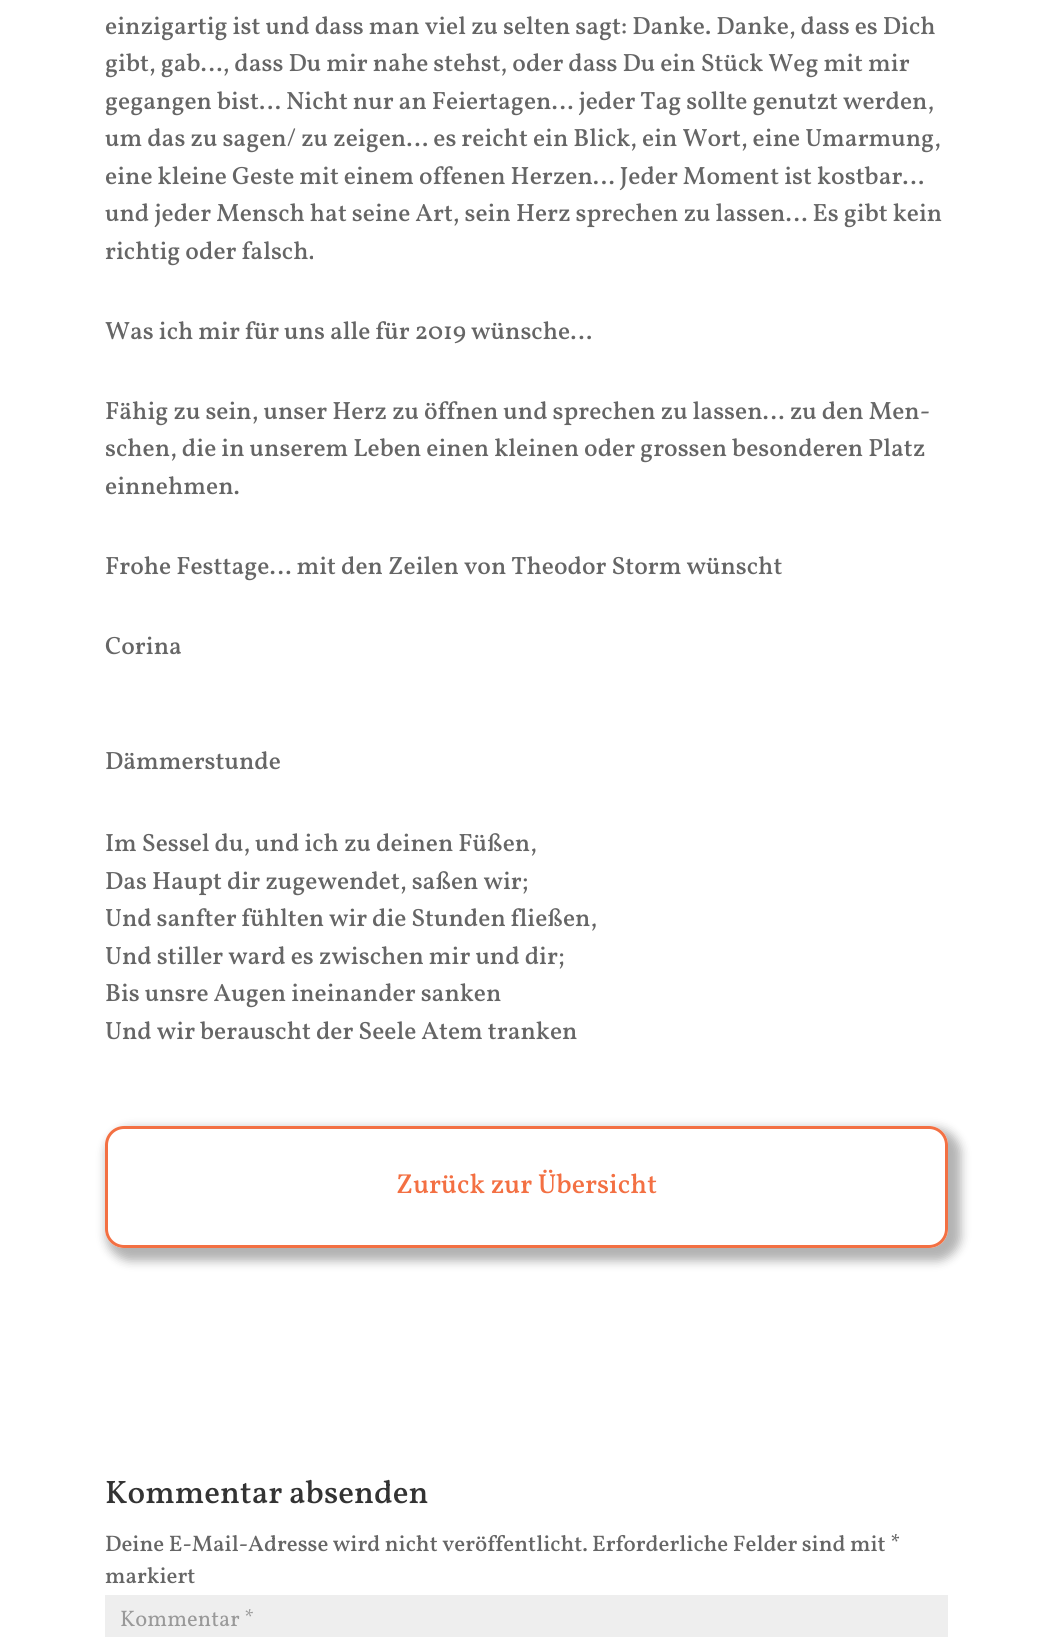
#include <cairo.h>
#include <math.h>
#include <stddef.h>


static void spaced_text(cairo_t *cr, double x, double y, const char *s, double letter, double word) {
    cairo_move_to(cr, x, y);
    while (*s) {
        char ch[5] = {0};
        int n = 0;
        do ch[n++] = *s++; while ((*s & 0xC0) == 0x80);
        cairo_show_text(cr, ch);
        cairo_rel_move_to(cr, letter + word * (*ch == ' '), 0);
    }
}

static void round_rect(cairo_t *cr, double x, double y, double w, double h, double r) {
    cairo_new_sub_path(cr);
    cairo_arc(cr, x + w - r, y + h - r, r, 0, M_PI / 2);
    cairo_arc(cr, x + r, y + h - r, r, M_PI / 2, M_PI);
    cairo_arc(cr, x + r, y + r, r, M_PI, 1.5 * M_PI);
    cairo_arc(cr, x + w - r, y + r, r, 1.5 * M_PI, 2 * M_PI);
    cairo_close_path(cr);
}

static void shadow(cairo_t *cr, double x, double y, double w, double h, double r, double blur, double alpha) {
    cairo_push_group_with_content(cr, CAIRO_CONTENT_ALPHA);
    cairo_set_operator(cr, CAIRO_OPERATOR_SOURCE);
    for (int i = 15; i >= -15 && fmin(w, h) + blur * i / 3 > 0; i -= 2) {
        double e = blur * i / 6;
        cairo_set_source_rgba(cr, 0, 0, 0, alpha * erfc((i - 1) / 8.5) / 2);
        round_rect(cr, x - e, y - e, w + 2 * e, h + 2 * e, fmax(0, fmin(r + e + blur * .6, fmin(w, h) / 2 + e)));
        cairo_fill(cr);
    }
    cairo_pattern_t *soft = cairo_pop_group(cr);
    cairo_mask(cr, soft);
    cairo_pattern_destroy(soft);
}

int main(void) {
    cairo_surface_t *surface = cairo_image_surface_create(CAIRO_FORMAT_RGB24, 1052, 1637);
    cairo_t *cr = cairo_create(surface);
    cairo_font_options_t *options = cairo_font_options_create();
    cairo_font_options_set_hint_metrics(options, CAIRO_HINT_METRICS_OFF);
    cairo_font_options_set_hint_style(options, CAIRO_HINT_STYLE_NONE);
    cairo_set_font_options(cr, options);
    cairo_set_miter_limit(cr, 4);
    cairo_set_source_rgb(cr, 1, 1, 1);
    cairo_paint(cr);
    cairo_select_font_face(cr, "Vollkorn Medium", CAIRO_FONT_SLANT_NORMAL, CAIRO_FONT_WEIGHT_NORMAL);
    cairo_set_font_size(cr, 25);
    cairo_set_source_rgb(cr, 0.4, 0.4, 0.4);
    cairo_move_to(cr, 105, 34);
    cairo_show_text(cr, "einzigartig ist und dass man viel zu selten sagt: Danke. Danke, dass es Dich");
    cairo_move_to(cr, 105, 71);
    cairo_show_text(cr, "gibt, gab…, dass Du mir nahe stehst, oder dass Du ein Stück Weg mit mir");
    cairo_move_to(cr, 105, 109);
    cairo_show_text(cr, "gegangen bist… Nicht nur an Feiertagen… jeder Tag sollte genutzt werden,");
    cairo_move_to(cr, 105, 146);
    cairo_show_text(cr, "um das zu sagen/ zu zeigen… es reicht ein Blick, ein Wort, eine Umarmung,");
    cairo_move_to(cr, 105, 184);
    cairo_show_text(cr, "eine kleine Geste mit einem offenen Herzen… Jeder Moment ist kostbar…");
    cairo_move_to(cr, 105, 221);
    cairo_show_text(cr, "und jeder Mensch hat seine Art, sein Herz sprechen zu lassen… Es gibt kein");
    cairo_move_to(cr, 105, 259);
    cairo_show_text(cr, "richtig oder falsch.");
    cairo_move_to(cr, 105, 339);
    cairo_show_text(cr, "Was ich mir für uns alle für 2019 wünsche…");
    cairo_move_to(cr, 105, 419);
    cairo_show_text(cr, "Fähig zu sein, unser Herz zu öffnen und sprechen zu lassen… zu den Men-");
    cairo_move_to(cr, 105, 456);
    cairo_show_text(cr, "schen, die in unserem Leben einen kleinen oder grossen besonderen Platz");
    cairo_move_to(cr, 105, 494);
    cairo_show_text(cr, "einnehmen.");
    cairo_move_to(cr, 105, 574);
    cairo_show_text(cr, "Frohe Festtage… mit den Zeilen von Theodor Storm wünscht");
    cairo_move_to(cr, 105, 654);
    cairo_show_text(cr, "Corina");
    cairo_move_to(cr, 105, 769);
    cairo_show_text(cr, "Dämmerstunde");
    cairo_move_to(cr, 105, 851);
    cairo_show_text(cr, "Im Sessel du, und ich zu deinen Füßen,");
    cairo_move_to(cr, 105, 889);
    cairo_show_text(cr, "Das Haupt dir zugewendet, saßen wir;");
    spaced_text(cr, 105, 926, "Und sanfter fühlten wir die Stunden fließen,", 0, -0.25);
    cairo_move_to(cr, 105, 964);
    cairo_show_text(cr, "Und stiller ward es zwischen mir und dir;");
    cairo_move_to(cr, 105, 1001);
    cairo_show_text(cr, "Bis unsre Augen ineinander sanken");
    cairo_move_to(cr, 105, 1039);
    cairo_show_text(cr, "Und wir berauscht der Seele Atem tranken");
    cairo_save(cr);
    cairo_set_fill_rule(cr, CAIRO_FILL_RULE_EVEN_ODD);
    cairo_new_path(cr);
    cairo_move_to(cr, 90, 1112);
    cairo_line_to(cr, 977, 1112);
    cairo_line_to(cr, 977, 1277);
    cairo_line_to(cr, 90, 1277);
    cairo_close_path(cr);
    cairo_move_to(cr, 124, 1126);
    cairo_line_to(cr, 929, 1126);
    cairo_curve_to(cr, 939.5, 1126, 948, 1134.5, 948, 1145);
    cairo_line_to(cr, 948, 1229);
    cairo_curve_to(cr, 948, 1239.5, 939.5, 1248, 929, 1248);
    cairo_line_to(cr, 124, 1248);
    cairo_curve_to(cr, 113.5, 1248, 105, 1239.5, 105, 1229);
    cairo_line_to(cr, 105, 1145);
    cairo_curve_to(cr, 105, 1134.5, 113.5, 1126, 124, 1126);
    cairo_close_path(cr);
    cairo_clip(cr);
    cairo_set_source_rgb(cr, 0, 0, 0);
    shadow(cr, 106, 1128, 855, 133, 25, 5, 0.3);
    cairo_restore(cr);
    round_rect(cr, 106.5, 1127.5, 840, 119, 17.5);
    cairo_set_source_rgb(cr, 0.953, 0.439, 0.263);
    cairo_set_line_width(cr, 3);
    cairo_stroke(cr);
    cairo_set_font_size(cr, 27.5);
    cairo_move_to(cr, 396, 1193);
    cairo_show_text(cr, "Zurück zur Übersicht");
    cairo_set_font_size(cr, 32.5);
    cairo_set_source_rgb(cr, 0.2, 0.2, 0.2);
    cairo_move_to(cr, 105, 1503);
    cairo_show_text(cr, "Kommentar absenden");
    cairo_set_font_size(cr, 22.5);
    cairo_set_source_rgb(cr, 0.4, 0.4, 0.4);
    cairo_move_to(cr, 105, 1551);
    cairo_show_text(cr, "Deine E-Mail-Adresse wird nicht veröffentlicht.");
    cairo_move_to(cr, 592, 1551);
    cairo_show_text(cr, "Erforderliche Felder sind mit *");
    cairo_move_to(cr, 105, 1583);
    cairo_show_text(cr, "markiert");
    cairo_set_source_rgb(cr, 0.933, 0.933, 0.933);
    cairo_rectangle(cr, 105, 1595, 843, 42);
    cairo_fill(cr);
    cairo_select_font_face(cr, "Vollkorn", CAIRO_FONT_SLANT_NORMAL, CAIRO_FONT_WEIGHT_NORMAL);
    cairo_set_source_rgb(cr, 0.6, 0.6, 0.6);
    cairo_move_to(cr, 120, 1626);
    cairo_show_text(cr, "Kommentar *");
    cairo_surface_write_to_png(surface, "page.png");
    cairo_font_options_destroy(options);
    cairo_destroy(cr);
    cairo_surface_destroy(surface);
    return 0;
}
